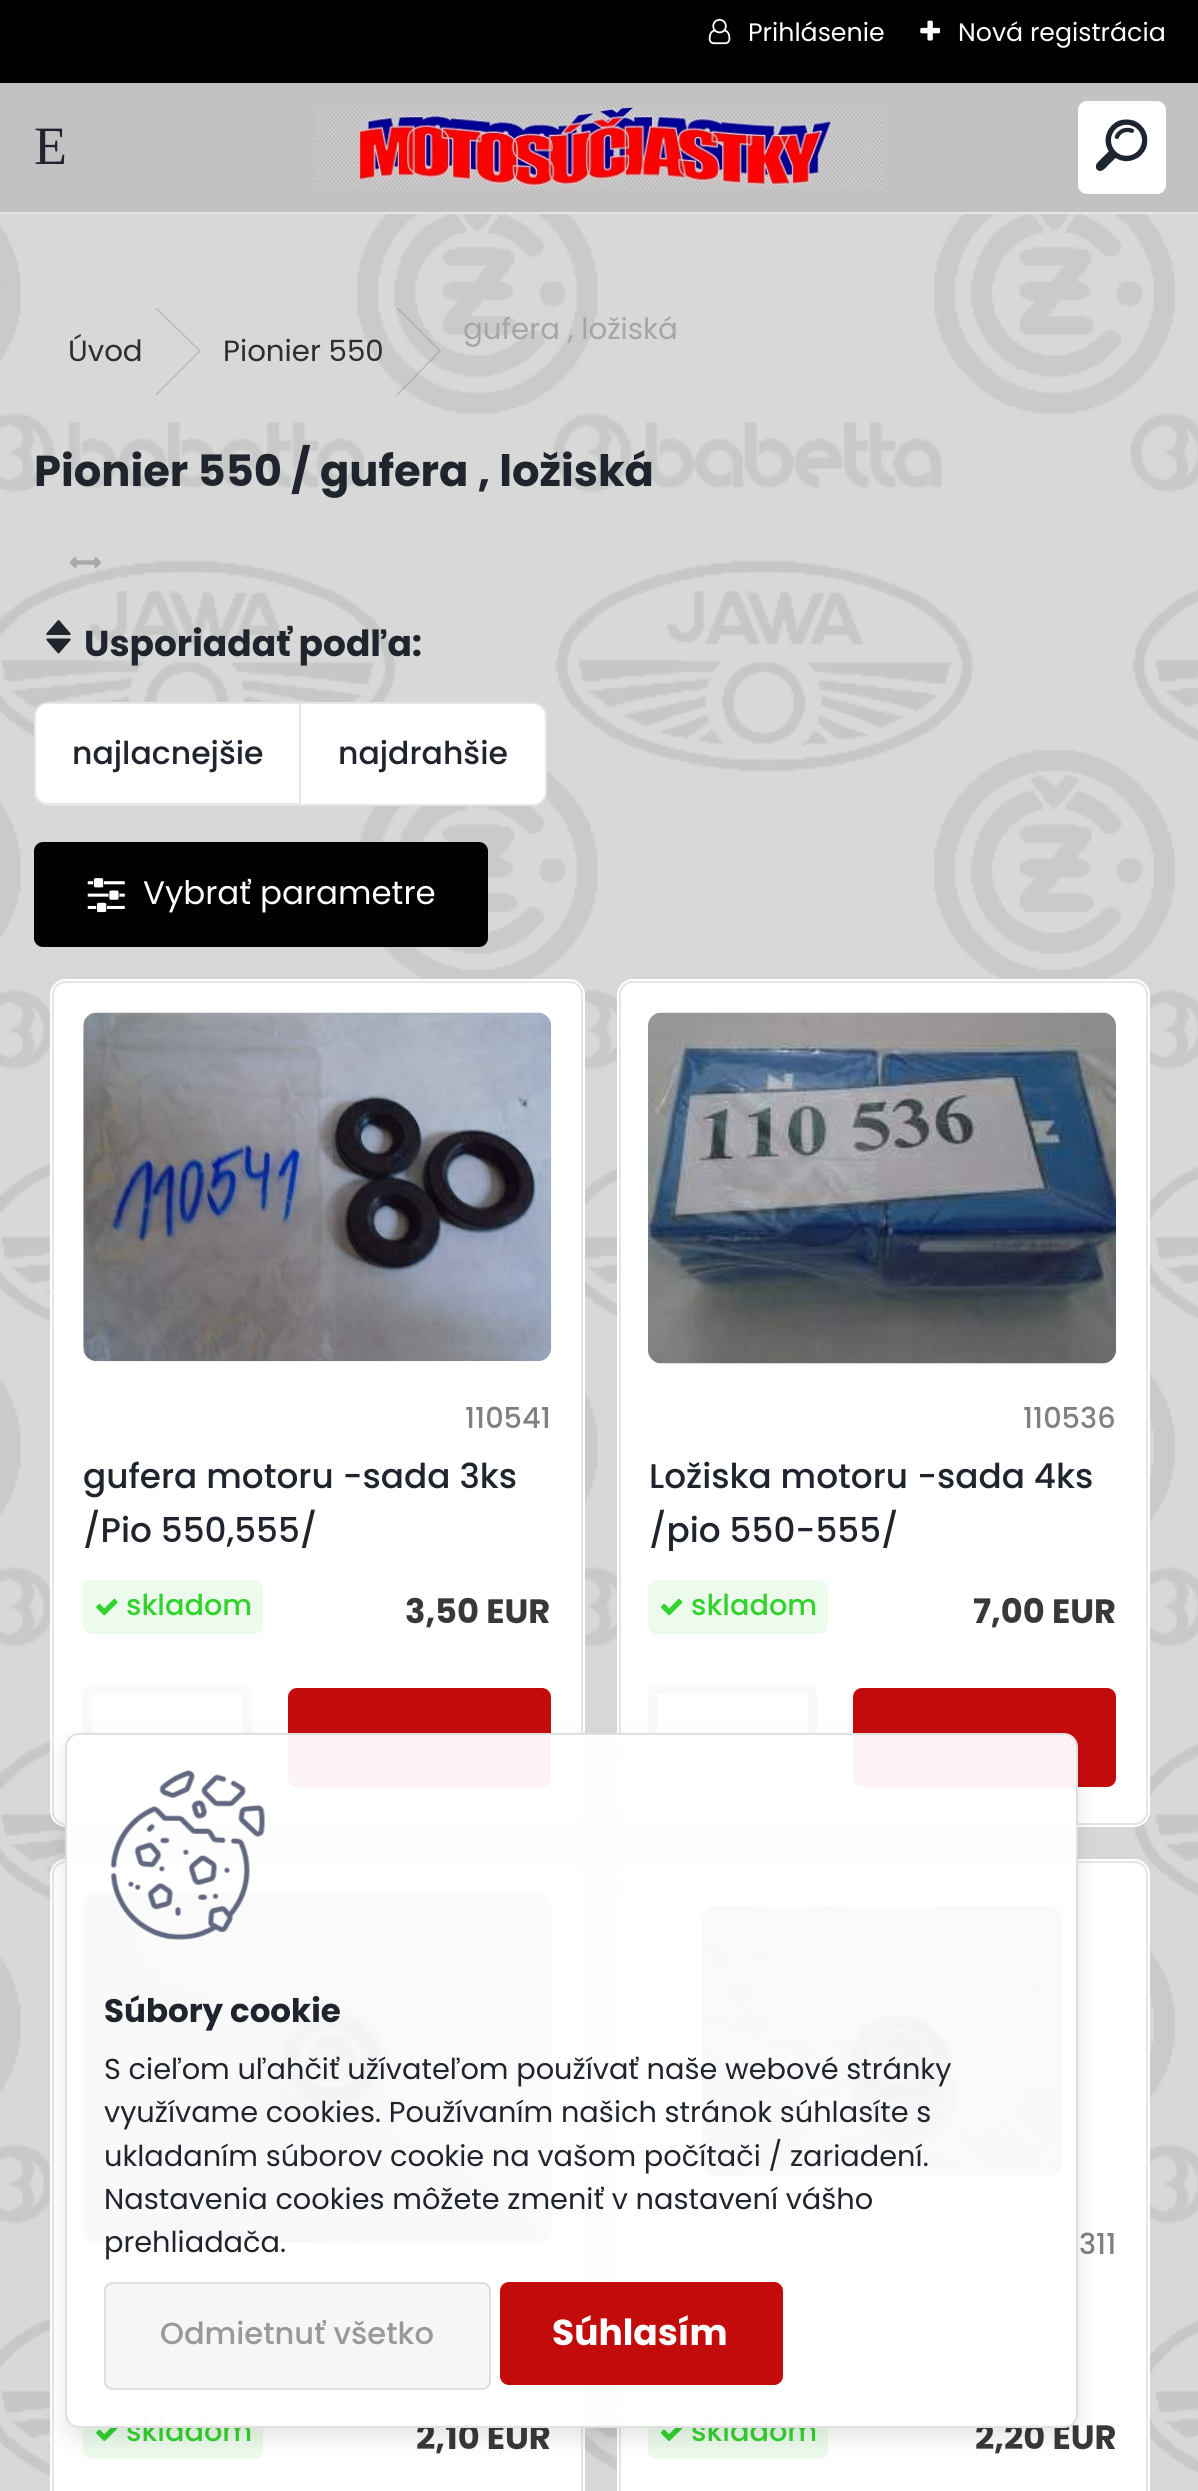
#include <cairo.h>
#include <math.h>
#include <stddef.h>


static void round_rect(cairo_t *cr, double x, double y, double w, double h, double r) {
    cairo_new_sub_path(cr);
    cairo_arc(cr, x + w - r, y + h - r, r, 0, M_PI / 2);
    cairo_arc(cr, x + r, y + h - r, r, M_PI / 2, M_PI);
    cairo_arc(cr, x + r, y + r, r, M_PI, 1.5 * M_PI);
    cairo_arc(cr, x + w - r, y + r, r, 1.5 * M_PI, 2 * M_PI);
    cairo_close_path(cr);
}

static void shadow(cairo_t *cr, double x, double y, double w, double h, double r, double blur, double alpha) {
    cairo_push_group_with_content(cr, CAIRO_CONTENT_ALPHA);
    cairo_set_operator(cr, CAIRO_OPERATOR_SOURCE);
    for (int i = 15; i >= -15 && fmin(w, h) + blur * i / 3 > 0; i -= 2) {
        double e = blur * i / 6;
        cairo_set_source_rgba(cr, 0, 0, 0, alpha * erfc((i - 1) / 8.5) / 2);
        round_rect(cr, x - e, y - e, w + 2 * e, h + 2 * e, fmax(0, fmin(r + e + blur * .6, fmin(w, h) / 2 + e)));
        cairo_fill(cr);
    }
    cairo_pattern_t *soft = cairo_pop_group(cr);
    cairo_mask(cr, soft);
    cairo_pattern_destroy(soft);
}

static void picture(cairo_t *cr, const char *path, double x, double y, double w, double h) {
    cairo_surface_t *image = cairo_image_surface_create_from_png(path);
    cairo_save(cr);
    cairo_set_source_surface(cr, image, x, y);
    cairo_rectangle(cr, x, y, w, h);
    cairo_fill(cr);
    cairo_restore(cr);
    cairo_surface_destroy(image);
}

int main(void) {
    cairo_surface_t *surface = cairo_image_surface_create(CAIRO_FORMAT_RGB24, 1198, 2491);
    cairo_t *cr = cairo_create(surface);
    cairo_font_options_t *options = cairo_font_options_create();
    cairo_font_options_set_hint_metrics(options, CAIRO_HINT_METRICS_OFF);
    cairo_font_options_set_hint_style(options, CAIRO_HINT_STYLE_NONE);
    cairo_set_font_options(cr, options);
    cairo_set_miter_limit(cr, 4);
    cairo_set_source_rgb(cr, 0, 0, 0);
    cairo_paint(cr);
    picture(cr, "img1.png", 708, 18, 23, 27);
    cairo_select_font_face(cr, "Poppins", CAIRO_FONT_SLANT_NORMAL, CAIRO_FONT_WEIGHT_NORMAL);
    cairo_set_font_size(cr, 25.25);
    cairo_set_source_rgb(cr, 1, 1, 1);
    cairo_move_to(cr, 748, 41);
    cairo_show_text(cr, "Prihlásenie");
    picture(cr, "img2.png", 920, 20, 21, 21);
    cairo_move_to(cr, 958, 41);
    cairo_show_text(cr, "Nová registrácia");
    cairo_set_source_rgb(cr, 0.765, 0.757, 0.761);
    cairo_rectangle(cr, 0, 83, 1198, 129);
    cairo_fill(cr);
    cairo_set_source_rgb(cr, 0.902, 0.902, 0.902);
    cairo_rectangle(cr, 0, 212, 1198, 2);
    cairo_fill(cr);
    cairo_select_font_face(cr, "Liberation Serif", CAIRO_FONT_SLANT_NORMAL, CAIRO_FONT_WEIGHT_NORMAL);
    cairo_set_font_size(cr, 54);
    cairo_set_source_rgb(cr, 0.122, 0.141, 0.176);
    cairo_move_to(cr, 34, 164);
    cairo_show_text(cr, "E");
    picture(cr, "img3.png", 317, 105, 565, 84);
    cairo_set_source_rgb(cr, 1, 1, 1);
    round_rect(cr, 1078, 101, 88, 93, 9);
    cairo_fill(cr);
    picture(cr, "img4.png", 1096, 119, 52, 52);
    picture(cr, "img5.png", 0, 214, 1198, 2277);
    cairo_select_font_face(cr, "Poppins", CAIRO_FONT_SLANT_NORMAL, CAIRO_FONT_WEIGHT_NORMAL);
    cairo_set_font_size(cr, 29.25);
    cairo_set_source_rgb(cr, 0.176, 0.176, 0.176);
    cairo_move_to(cr, 68, 361);
    cairo_show_text(cr, "Úvod");
    cairo_set_source_rgb(cr, 0.722, 0.722, 0.722);
    cairo_new_path(cr);
    cairo_move_to(cr, 155, 308);
    cairo_line_to(cr, 157, 308);
    cairo_line_to(cr, 201, 351);
    cairo_line_to(cr, 199, 351);
    cairo_close_path(cr);
    cairo_fill(cr);
    cairo_new_path(cr);
    cairo_move_to(cr, 199, 351);
    cairo_line_to(cr, 201, 351);
    cairo_line_to(cr, 157, 395);
    cairo_line_to(cr, 155, 395);
    cairo_close_path(cr);
    cairo_fill(cr);
    cairo_set_source_rgb(cr, 0.176, 0.176, 0.176);
    cairo_move_to(cr, 223, 361);
    cairo_show_text(cr, "Pionier 550");
    cairo_set_source_rgb(cr, 0.678, 0.678, 0.678);
    cairo_new_path(cr);
    cairo_move_to(cr, 396, 308);
    cairo_line_to(cr, 398, 308);
    cairo_line_to(cr, 441, 351);
    cairo_line_to(cr, 439, 351);
    cairo_close_path(cr);
    cairo_fill(cr);
    cairo_set_source_rgba(cr, 0.216, 0.216, 0.216, 0.2);
    cairo_new_path(cr);
    cairo_move_to(cr, 439, 351);
    cairo_line_to(cr, 441, 351);
    cairo_line_to(cr, 398, 395);
    cairo_line_to(cr, 396, 395);
    cairo_close_path(cr);
    cairo_fill(cr);
    cairo_set_source_rgb(cr, 0.647, 0.647, 0.647);
    cairo_move_to(cr, 463, 339);
    cairo_show_text(cr, "gufera , ložiská");
    cairo_select_font_face(cr, "Poppins", CAIRO_FONT_SLANT_NORMAL, CAIRO_FONT_WEIGHT_BOLD);
    cairo_set_font_size(cr, 43.25);
    cairo_set_source_rgb(cr, 0.122, 0.141, 0.176);
    cairo_move_to(cr, 34, 486);
    cairo_show_text(cr, "Pionier 550 / gufera , ložiská");
    picture(cr, "img6.png", 69, 557, 33, 11);
    picture(cr, "img7.png", 46, 620, 25, 34);
    cairo_set_font_size(cr, 36);
    cairo_move_to(cr, 84, 656);
    cairo_show_text(cr, "Usporiadať podľa:");
    cairo_set_source_rgb(cr, 1, 1, 1);
    cairo_new_path(cr);
    cairo_move_to(cr, 48, 702);
    cairo_line_to(cr, 299, 702);
    cairo_line_to(cr, 299, 806);
    cairo_line_to(cr, 48, 806);
    cairo_curve_to(cr, 40.5, 806, 34, 799.5, 34, 792);
    cairo_line_to(cr, 34, 716);
    cairo_curve_to(cr, 34, 708.5, 40.5, 702, 48, 702);
    cairo_close_path(cr);
    cairo_fill(cr);
    cairo_set_source_rgba(cr, 0, 0, 0, 0.1);
    cairo_set_fill_rule(cr, CAIRO_FILL_RULE_EVEN_ODD);
    cairo_new_path(cr);
    cairo_move_to(cr, 47, 702);
    cairo_line_to(cr, 299, 702);
    cairo_line_to(cr, 299, 806);
    cairo_line_to(cr, 47, 806);
    cairo_curve_to(cr, 40, 806, 34, 799, 34, 792);
    cairo_line_to(cr, 34, 716);
    cairo_curve_to(cr, 34, 708, 40, 702, 47, 702);
    cairo_close_path(cr);
    cairo_move_to(cr, 47, 704);
    cairo_line_to(cr, 299, 704);
    cairo_line_to(cr, 299, 803);
    cairo_line_to(cr, 47, 803);
    cairo_curve_to(cr, 41, 803, 36, 798, 36, 792);
    cairo_line_to(cr, 36, 716);
    cairo_curve_to(cr, 36, 709, 41, 704, 47, 704);
    cairo_close_path(cr);
    cairo_fill(cr);
    cairo_select_font_face(cr, "Poppins Medium", CAIRO_FONT_SLANT_NORMAL, CAIRO_FONT_WEIGHT_NORMAL);
    cairo_set_font_size(cr, 31.5);
    cairo_set_source_rgb(cr, 0.122, 0.141, 0.176);
    cairo_move_to(cr, 72, 764);
    cairo_show_text(cr, "najlacnejšie");
    cairo_set_source_rgb(cr, 1, 1, 1);
    cairo_new_path(cr);
    cairo_move_to(cr, 299, 702);
    cairo_line_to(cr, 533, 702);
    cairo_curve_to(cr, 540.5, 702, 547, 708.5, 547, 716);
    cairo_line_to(cr, 547, 792);
    cairo_curve_to(cr, 547, 799.5, 540.5, 806, 533, 806);
    cairo_line_to(cr, 299, 806);
    cairo_close_path(cr);
    cairo_fill(cr);
    cairo_new_path(cr);
    cairo_move_to(cr, 300, 703);
    cairo_line_to(cr, 533, 703);
    cairo_curve_to(cr, 540, 703, 546, 709, 546, 716);
    cairo_line_to(cr, 546, 792);
    cairo_curve_to(cr, 546, 799, 540, 805, 533, 805);
    cairo_line_to(cr, 300, 805);
    cairo_close_path(cr);
    cairo_set_source_rgba(cr, 0, 0, 0, 0.1);
    cairo_stroke(cr);
    cairo_set_source_rgb(cr, 0.122, 0.141, 0.176);
    cairo_move_to(cr, 338, 764);
    cairo_show_text(cr, "najdrahšie");
    cairo_set_source_rgb(cr, 0, 0, 0);
    round_rect(cr, 34, 842, 454, 105, 9);
    cairo_fill(cr);
    picture(cr, "img8.png", 87, 878, 38, 35);
    cairo_select_font_face(cr, "Poppins", CAIRO_FONT_SLANT_NORMAL, CAIRO_FONT_WEIGHT_NORMAL);
    cairo_set_font_size(cr, 32.5);
    cairo_set_source_rgb(cr, 1, 1, 1);
    cairo_move_to(cr, 143, 904);
    cairo_show_text(cr, "Vybrať parametre");
    round_rect(cr, 51, 980, 533, 846, 15);
    cairo_stroke(cr);
    round_rect(cr, 52, 981, 531, 844, 14);
    cairo_fill(cr);
    round_rect(cr, 53, 982, 529, 842, 13);
    cairo_set_source_rgba(cr, 0, 0, 0, 0.1);
    cairo_stroke(cr);
    picture(cr, "img9.png", 83, 1012, 469, 350);
    cairo_select_font_face(cr, "Poppins Medium", CAIRO_FONT_SLANT_NORMAL, CAIRO_FONT_WEIGHT_NORMAL);
    cairo_set_font_size(cr, 28.8);
    cairo_set_source_rgb(cr, 0.502, 0.502, 0.502);
    cairo_move_to(cr, 465, 1428);
    cairo_show_text(cr, "110541");
    cairo_set_font_size(cr, 34.25);
    cairo_set_source_rgb(cr, 0.122, 0.141, 0.176);
    cairo_move_to(cr, 83, 1488);
    cairo_show_text(cr, "gufera motoru -sada 3ks");
    cairo_move_to(cr, 83, 1542);
    cairo_show_text(cr, "/Pio 550,555/");
    cairo_set_source_rgb(cr, 0.922, 0.984, 0.918);
    round_rect(cr, 83, 1580, 180, 54, 9);
    cairo_fill(cr);
    picture(cr, "img10.png", 96, 1598, 22, 18);
    cairo_set_font_size(cr, 28.8);
    cairo_set_source_rgb(cr, 0.204, 0.824, 0.184);
    cairo_move_to(cr, 126, 1615);
    cairo_show_text(cr, "skladom");
    cairo_select_font_face(cr, "Poppins", CAIRO_FONT_SLANT_NORMAL, CAIRO_FONT_WEIGHT_BOLD);
    cairo_set_font_size(cr, 33.75);
    cairo_set_source_rgb(cr, 0.22, 0.22, 0.22);
    cairo_move_to(cr, 405, 1623);
    cairo_show_text(cr, "3,50 EUR");
    round_rect(cr, 87.5, 1689.5, 160, 93, 4.5);
    cairo_set_source_rgb(cr, 0.973, 0.973, 0.973);
    cairo_set_line_width(cr, 9);
    cairo_stroke(cr);
    cairo_set_source_rgb(cr, 0.769, 0.043, 0.043);
    round_rect(cr, 288, 1688, 263, 99, 9);
    cairo_fill(cr);
    round_rect(cr, 618, 980, 531, 846, 15);
    cairo_set_source_rgb(cr, 1, 1, 1);
    cairo_set_line_width(cr, 2);
    cairo_stroke(cr);
    round_rect(cr, 619, 981, 529, 844, 14);
    cairo_fill(cr);
    round_rect(cr, 620, 982, 527, 842, 13);
    cairo_set_source_rgba(cr, 0, 0, 0, 0.1);
    cairo_stroke(cr);
    picture(cr, "img11.png", 648, 1012, 468, 352);
    cairo_select_font_face(cr, "Poppins Medium", CAIRO_FONT_SLANT_NORMAL, CAIRO_FONT_WEIGHT_NORMAL);
    cairo_set_font_size(cr, 28.8);
    cairo_set_source_rgb(cr, 0.502, 0.502, 0.502);
    cairo_move_to(cr, 1023, 1428);
    cairo_show_text(cr, "110536");
    cairo_set_font_size(cr, 34.25);
    cairo_set_source_rgb(cr, 0.122, 0.141, 0.176);
    cairo_move_to(cr, 649, 1488);
    cairo_show_text(cr, "Ložiska motoru -sada 4ks");
    cairo_move_to(cr, 649, 1542);
    cairo_show_text(cr, "/pio 550-555/");
    cairo_set_source_rgb(cr, 0.922, 0.984, 0.918);
    round_rect(cr, 648, 1580, 180, 54, 9);
    cairo_fill(cr);
    picture(cr, "img12.png", 660, 1598, 23, 18);
    cairo_set_font_size(cr, 28.8);
    cairo_set_source_rgb(cr, 0.204, 0.824, 0.184);
    cairo_move_to(cr, 691, 1615);
    cairo_show_text(cr, "skladom");
    cairo_select_font_face(cr, "Poppins", CAIRO_FONT_SLANT_NORMAL, CAIRO_FONT_WEIGHT_BOLD);
    cairo_set_font_size(cr, 33.75);
    cairo_set_source_rgb(cr, 0.22, 0.22, 0.22);
    cairo_move_to(cr, 973, 1623);
    cairo_show_text(cr, "7,00 EUR");
    round_rect(cr, 652.5, 1689.5, 160, 93, 4.5);
    cairo_set_source_rgb(cr, 0.973, 0.973, 0.973);
    cairo_set_line_width(cr, 9);
    cairo_stroke(cr);
    cairo_set_source_rgb(cr, 0.769, 0.043, 0.043);
    round_rect(cr, 853, 1688, 263, 99, 9);
    cairo_fill(cr);
    round_rect(cr, 51, 1860, 533, 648, 15);
    cairo_set_source_rgb(cr, 1, 1, 1);
    cairo_set_line_width(cr, 2);
    cairo_stroke(cr);
    round_rect(cr, 52, 1861, 531, 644, 14);
    cairo_fill(cr);
    round_rect(cr, 53, 1862, 529, 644, 13);
    cairo_set_source_rgba(cr, 0, 0, 0, 0.1);
    cairo_stroke(cr);
    picture(cr, "img13.png", 83, 1892, 469, 352);
    cairo_set_source_rgb(cr, 0.922, 0.984, 0.918);
    round_rect(cr, 83, 2405, 180, 54, 9);
    cairo_fill(cr);
    picture(cr, "img14.png", 96, 2424, 22, 17);
    cairo_select_font_face(cr, "Poppins Medium", CAIRO_FONT_SLANT_NORMAL, CAIRO_FONT_WEIGHT_NORMAL);
    cairo_set_font_size(cr, 28.8);
    cairo_set_source_rgb(cr, 0.204, 0.824, 0.184);
    cairo_move_to(cr, 126, 2441);
    cairo_show_text(cr, "skladom");
    cairo_select_font_face(cr, "Poppins", CAIRO_FONT_SLANT_NORMAL, CAIRO_FONT_WEIGHT_BOLD);
    cairo_set_font_size(cr, 33.75);
    cairo_set_source_rgb(cr, 0.22, 0.22, 0.22);
    cairo_move_to(cr, 416, 2449);
    cairo_show_text(cr, "2,10 EUR");
    round_rect(cr, 618, 1860, 531, 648, 15);
    cairo_set_source_rgb(cr, 1, 1, 1);
    cairo_stroke(cr);
    round_rect(cr, 619, 1861, 529, 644, 14);
    cairo_fill(cr);
    round_rect(cr, 620, 1862, 527, 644, 13);
    cairo_set_source_rgba(cr, 0, 0, 0, 0.1);
    cairo_stroke(cr);
    picture(cr, "img15.png", 702, 1905, 360, 271);
    cairo_select_font_face(cr, "Poppins Medium", CAIRO_FONT_SLANT_NORMAL, CAIRO_FONT_WEIGHT_NORMAL);
    cairo_set_font_size(cr, 28.8);
    cairo_set_source_rgb(cr, 0.502, 0.502, 0.502);
    cairo_move_to(cr, 1079, 2254);
    cairo_show_text(cr, "311");
    cairo_set_source_rgb(cr, 0.922, 0.984, 0.918);
    round_rect(cr, 648, 2405, 180, 54, 9);
    cairo_fill(cr);
    picture(cr, "img16.png", 660, 2424, 23, 17);
    cairo_set_source_rgb(cr, 0.204, 0.824, 0.184);
    cairo_move_to(cr, 691, 2441);
    cairo_show_text(cr, "skladom");
    cairo_select_font_face(cr, "Poppins", CAIRO_FONT_SLANT_NORMAL, CAIRO_FONT_WEIGHT_BOLD);
    cairo_set_font_size(cr, 33.75);
    cairo_set_source_rgb(cr, 0.22, 0.22, 0.22);
    cairo_move_to(cr, 975, 2449);
    cairo_show_text(cr, "2,20 EUR");
    cairo_save(cr);
    cairo_new_path(cr);
    cairo_move_to(cr, 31, 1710);
    cairo_line_to(cr, 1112, 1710);
    cairo_line_to(cr, 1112, 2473);
    cairo_line_to(cr, 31, 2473);
    cairo_close_path(cr);
    cairo_move_to(cr, 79, 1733);
    cairo_line_to(cr, 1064, 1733);
    cairo_curve_to(cr, 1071.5, 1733, 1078, 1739.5, 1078, 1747);
    cairo_line_to(cr, 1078, 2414);
    cairo_curve_to(cr, 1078, 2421.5, 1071.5, 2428, 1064, 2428);
    cairo_line_to(cr, 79, 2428);
    cairo_curve_to(cr, 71.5, 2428, 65, 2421.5, 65, 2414);
    cairo_line_to(cr, 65, 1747);
    cairo_curve_to(cr, 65, 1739.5, 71.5, 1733, 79, 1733);
    cairo_close_path(cr);
    cairo_clip(cr);
    cairo_set_source_rgb(cr, 0, 0, 0);
    shadow(cr, 65, 1744, 1013, 695, 14, 11, 0.1);
    cairo_restore(cr);
    cairo_set_source_rgba(cr, 1, 1, 1, 0.95);
    round_rect(cr, 66, 1734, 1011, 693, 13);
    cairo_fill_preserve(cr);
    cairo_set_source_rgb(cr, 0.878, 0.878, 0.878);
    cairo_stroke(cr);
    picture(cr, "img17.png", 110, 1770, 155, 170);
    cairo_set_font_size(cr, 32.5);
    cairo_set_source_rgb(cr, 0.122, 0.141, 0.176);
    cairo_move_to(cr, 104, 2022);
    cairo_show_text(cr, "Súbory cookie");
    cairo_select_font_face(cr, "Poppins", CAIRO_FONT_SLANT_NORMAL, CAIRO_FONT_WEIGHT_NORMAL);
    cairo_set_font_size(cr, 28.8);
    cairo_move_to(cr, 104, 2079);
    cairo_show_text(cr, "S cieľom uľahčiť užívateľom používať naše webové stránky");
    cairo_move_to(cr, 104, 2122);
    cairo_show_text(cr, "využívame cookies. Používaním našich stránok súhlasíte s");
    cairo_move_to(cr, 104, 2166);
    cairo_show_text(cr, "ukladaním súborov cookie na vašom počítači / zariadení.");
    cairo_move_to(cr, 104, 2209);
    cairo_show_text(cr, "Nastavenia cookies môžete zmeniť v nastavení vášho");
    cairo_move_to(cr, 104, 2252);
    cairo_show_text(cr, "prehliadača.");
    cairo_set_source_rgb(cr, 0.961, 0.961, 0.961);
    round_rect(cr, 104, 2282, 387, 108, 9);
    cairo_fill(cr);
    round_rect(cr, 105, 2283, 385, 106, 8);
    cairo_set_source_rgba(cr, 0, 0, 0, 0.1);
    cairo_stroke(cr);
    cairo_select_font_face(cr, "Poppins Medium", CAIRO_FONT_SLANT_NORMAL, CAIRO_FONT_WEIGHT_NORMAL);
    cairo_set_font_size(cr, 30.5);
    cairo_set_source_rgb(cr, 0.6, 0.6, 0.6);
    cairo_move_to(cr, 160, 2344);
    cairo_show_text(cr, "Odmietnuť všetko");
    cairo_set_source_rgb(cr, 0.769, 0.043, 0.043);
    round_rect(cr, 500, 2282, 283, 103, 9);
    cairo_fill(cr);
    cairo_select_font_face(cr, "Poppins", CAIRO_FONT_SLANT_NORMAL, CAIRO_FONT_WEIGHT_BOLD);
    cairo_set_font_size(cr, 36);
    cairo_set_source_rgb(cr, 1, 1, 1);
    cairo_move_to(cr, 552, 2345);
    cairo_show_text(cr, "Súhlasím");
    cairo_surface_write_to_png(surface, "page.png");
    cairo_font_options_destroy(options);
    cairo_destroy(cr);
    cairo_surface_destroy(surface);
    return 0;
}
